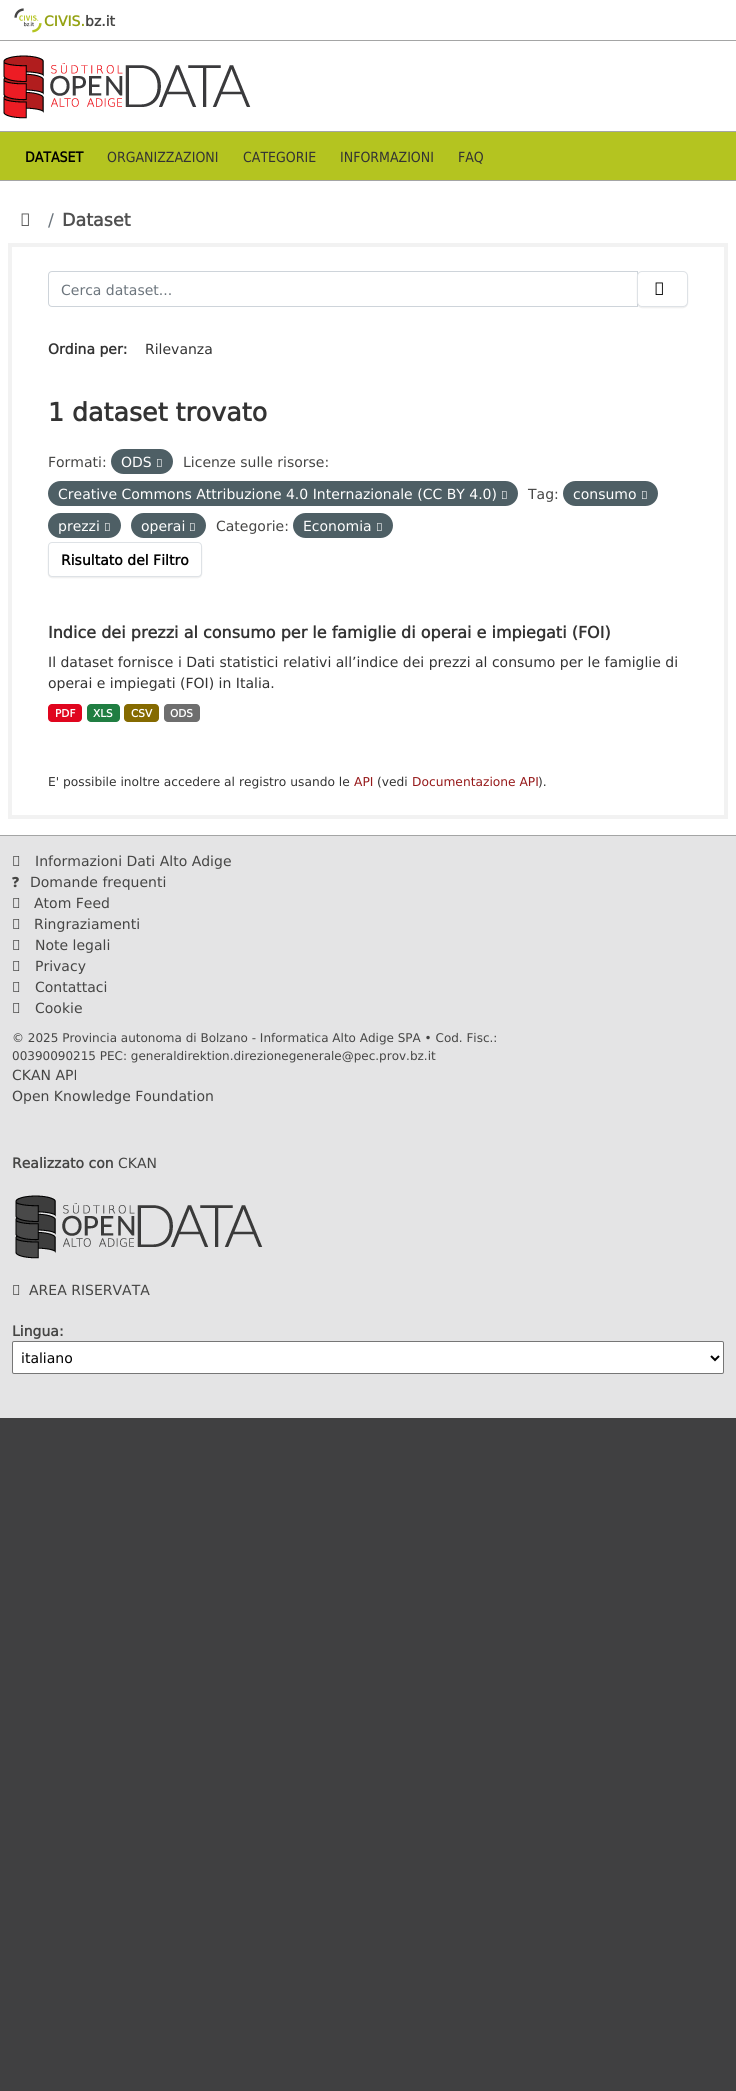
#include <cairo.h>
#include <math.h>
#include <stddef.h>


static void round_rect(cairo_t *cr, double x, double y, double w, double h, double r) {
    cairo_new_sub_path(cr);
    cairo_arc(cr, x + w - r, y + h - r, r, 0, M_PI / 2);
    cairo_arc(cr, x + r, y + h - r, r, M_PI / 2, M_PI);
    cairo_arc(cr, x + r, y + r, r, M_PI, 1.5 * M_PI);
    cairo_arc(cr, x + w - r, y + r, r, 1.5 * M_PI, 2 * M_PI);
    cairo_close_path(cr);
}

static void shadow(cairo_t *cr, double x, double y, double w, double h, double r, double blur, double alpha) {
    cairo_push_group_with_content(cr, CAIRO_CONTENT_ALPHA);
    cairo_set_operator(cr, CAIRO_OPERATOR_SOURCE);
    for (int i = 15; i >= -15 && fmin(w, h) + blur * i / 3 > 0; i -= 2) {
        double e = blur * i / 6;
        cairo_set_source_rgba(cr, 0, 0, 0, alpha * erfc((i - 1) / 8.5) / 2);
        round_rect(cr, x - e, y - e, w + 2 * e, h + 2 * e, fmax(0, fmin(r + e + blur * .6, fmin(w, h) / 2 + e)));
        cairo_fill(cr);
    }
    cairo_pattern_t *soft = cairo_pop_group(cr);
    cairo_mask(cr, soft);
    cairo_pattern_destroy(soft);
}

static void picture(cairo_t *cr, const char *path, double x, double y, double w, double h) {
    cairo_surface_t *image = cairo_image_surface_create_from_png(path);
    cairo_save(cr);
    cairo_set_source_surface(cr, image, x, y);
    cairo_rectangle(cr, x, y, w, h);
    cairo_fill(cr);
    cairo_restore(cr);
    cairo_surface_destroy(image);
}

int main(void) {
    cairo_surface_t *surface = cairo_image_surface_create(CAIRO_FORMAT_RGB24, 736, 2091);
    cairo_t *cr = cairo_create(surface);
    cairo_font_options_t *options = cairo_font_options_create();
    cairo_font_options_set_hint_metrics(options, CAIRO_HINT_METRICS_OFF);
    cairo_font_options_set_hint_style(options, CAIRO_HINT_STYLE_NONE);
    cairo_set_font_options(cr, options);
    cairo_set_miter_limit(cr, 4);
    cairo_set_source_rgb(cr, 0.251, 0.251, 0.255);
    cairo_paint(cr);
    cairo_set_source_rgb(cr, 1, 1, 1);
    cairo_rectangle(cr, 0, 0, 736, 40);
    cairo_fill(cr);
    cairo_set_source_rgb(cr, 0.643, 0.647, 0.647);
    cairo_rectangle(cr, 0, 40, 736, 1);
    cairo_fill(cr);
    picture(cr, "img1.png", 14, 8, 28, 25);
    cairo_select_font_face(cr, "DejaVu Sans", CAIRO_FONT_SLANT_NORMAL, CAIRO_FONT_WEIGHT_BOLD);
    cairo_set_font_size(cr, 14);
    cairo_set_source_rgb(cr, 0.58, 0.635, 0.071);
    cairo_move_to(cr, 44, 26);
    cairo_show_text(cr, "CIVIS.");
    cairo_set_source_rgb(cr, 0.271, 0.271, 0.267);
    cairo_move_to(cr, 85, 26);
    cairo_show_text(cr, "bz.it");
    cairo_set_source_rgb(cr, 1, 1, 1);
    cairo_rectangle(cr, 0, 41, 736, 90);
    cairo_fill(cr);
    picture(cr, "img2.png", 3, 55, 248, 64);
    cairo_set_source_rgb(cr, 0.706, 0.769, 0.125);
    cairo_rectangle(cr, 0, 132, 736, 48);
    cairo_fill(cr);
    cairo_set_source_rgb(cr, 0.643, 0.647, 0.647);
    cairo_rectangle(cr, 0, 131, 736, 1);
    cairo_fill(cr);
    cairo_rectangle(cr, 0, 180, 736, 1);
    cairo_fill(cr);
    cairo_select_font_face(cr, "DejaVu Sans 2", CAIRO_FONT_SLANT_NORMAL, CAIRO_FONT_WEIGHT_BOLD);
    cairo_set_source_rgb(cr, 0, 0, 0);
    cairo_move_to(cr, 25, 162);
    cairo_show_text(cr, "DATASET");
    cairo_select_font_face(cr, "DejaVu Sans 2", CAIRO_FONT_SLANT_NORMAL, CAIRO_FONT_WEIGHT_NORMAL);
    cairo_set_source_rgb(cr, 0.2, 0.2, 0.2);
    cairo_move_to(cr, 107, 162);
    cairo_show_text(cr, "ORGANIZZAZIONI");
    cairo_move_to(cr, 243, 162);
    cairo_show_text(cr, "CATEGORIE");
    cairo_move_to(cr, 340, 162);
    cairo_show_text(cr, "INFORMAZIONI");
    cairo_move_to(cr, 458, 162);
    cairo_show_text(cr, "FAQ");
    cairo_set_source_rgb(cr, 1, 1, 1);
    cairo_rectangle(cr, 0, 181, 736, 654);
    cairo_fill(cr);
    picture(cr, "img3.png", 21, 213, 8, 13);
    cairo_select_font_face(cr, "DejaVu Sans", CAIRO_FONT_SLANT_NORMAL, CAIRO_FONT_WEIGHT_NORMAL);
    cairo_set_font_size(cr, 17.5);
    cairo_set_source_rgb(cr, 0.424, 0.459, 0.49);
    cairo_move_to(cr, 48, 226);
    cairo_show_text(cr, "/");
    cairo_select_font_face(cr, "DejaVu Sans", CAIRO_FONT_SLANT_NORMAL, CAIRO_FONT_WEIGHT_BOLD);
    cairo_set_source_rgb(cr, 0.314, 0.314, 0.314);
    cairo_move_to(cr, 62, 226);
    cairo_show_text(cr, "Dataset");
    cairo_rectangle(cr, 10, 245, 716, 572);
    cairo_set_source_rgb(cr, 0.949, 0.949, 0.949);
    cairo_set_line_width(cr, 4);
    cairo_stroke(cr);
    cairo_new_path(cr);
    cairo_move_to(cr, 52, 271.5);
    cairo_line_to(cr, 637.5, 271.5);
    cairo_line_to(cr, 637.5, 306.5);
    cairo_line_to(cr, 52, 306.5);
    cairo_curve_to(cr, 50, 306.5, 48.5, 305, 48.5, 303);
    cairo_line_to(cr, 48.5, 275);
    cairo_curve_to(cr, 48.5, 273, 50, 271.5, 52, 271.5);
    cairo_close_path(cr);
    cairo_set_source_rgb(cr, 0.808, 0.831, 0.855);
    cairo_set_line_width(cr, 1);
    cairo_stroke(cr);
    cairo_select_font_face(cr, "DejaVu Sans", CAIRO_FONT_SLANT_NORMAL, CAIRO_FONT_WEIGHT_NORMAL);
    cairo_set_font_size(cr, 14);
    cairo_set_source_rgb(cr, 0.424, 0.459, 0.49);
    cairo_move_to(cr, 61, 295);
    cairo_show_text(cr, "Cerca dataset...");
    cairo_set_source_rgb(cr, 0, 0, 0);
    shadow(cr, 637, 272, 51, 36, 5, 0.5, 0.07);
    cairo_set_source_rgb(cr, 1, 1, 1);
    round_rect(cr, 637.5, 271.5, 50, 35, 4.5);
    cairo_fill_preserve(cr);
    cairo_set_source_rgb(cr, 0.871, 0.886, 0.902);
    cairo_stroke(cr);
    picture(cr, "img4.png", 655, 282, 8, 13);
    cairo_select_font_face(cr, "DejaVu Sans", CAIRO_FONT_SLANT_NORMAL, CAIRO_FONT_WEIGHT_BOLD);
    cairo_set_source_rgb(cr, 0.2, 0.2, 0.2);
    cairo_move_to(cr, 48, 354);
    cairo_show_text(cr, "Ordina per:");
    cairo_select_font_face(cr, "DejaVu Sans", CAIRO_FONT_SLANT_NORMAL, CAIRO_FONT_WEIGHT_NORMAL);
    cairo_move_to(cr, 145, 354);
    cairo_show_text(cr, "Rilevanza");
    cairo_select_font_face(cr, "DejaVu Sans", CAIRO_FONT_SLANT_NORMAL, CAIRO_FONT_WEIGHT_BOLD);
    cairo_set_font_size(cr, 25.25);
    cairo_move_to(cr, 48, 421);
    cairo_show_text(cr, "1 dataset trovato");
    cairo_select_font_face(cr, "DejaVu Sans", CAIRO_FONT_SLANT_NORMAL, CAIRO_FONT_WEIGHT_NORMAL);
    cairo_set_font_size(cr, 14);
    cairo_set_source_rgb(cr, 0.271, 0.271, 0.267);
    cairo_move_to(cr, 48, 467);
    cairo_show_text(cr, "Formati:");
    cairo_set_source_rgb(cr, 0.306, 0.373, 0.396);
    round_rect(cr, 111, 449, 62, 25, 12.5);
    cairo_fill(cr);
    cairo_set_source_rgb(cr, 1, 1, 1);
    cairo_move_to(cr, 121, 467);
    cairo_show_text(cr, "ODS");
    picture(cr, "img5.png", 157, 459, 5, 8);
    cairo_set_source_rgb(cr, 0.271, 0.271, 0.267);
    cairo_move_to(cr, 183, 467);
    cairo_show_text(cr, "Licenze sulle risorse:");
    cairo_set_source_rgb(cr, 0.306, 0.373, 0.396);
    round_rect(cr, 48, 481, 470, 25, 12.5);
    cairo_fill(cr);
    cairo_set_source_rgb(cr, 1, 1, 1);
    cairo_move_to(cr, 58, 499);
    cairo_show_text(cr, "Creative Commons Attribuzione 4.0 Internazionale (CC BY 4.0)");
    picture(cr, "img5.png", 502, 491, 5, 8);
    cairo_set_source_rgb(cr, 0.271, 0.271, 0.267);
    cairo_move_to(cr, 528, 499);
    cairo_show_text(cr, "Tag:");
    cairo_set_source_rgb(cr, 0.306, 0.373, 0.396);
    round_rect(cr, 563, 481, 95, 25, 12.5);
    cairo_fill(cr);
    cairo_set_source_rgb(cr, 1, 1, 1);
    cairo_move_to(cr, 573, 499);
    cairo_show_text(cr, "consumo");
    picture(cr, "img5.png", 642, 491, 5, 8);
    cairo_set_source_rgb(cr, 0.306, 0.373, 0.396);
    round_rect(cr, 48, 513, 73, 25, 12.5);
    cairo_fill(cr);
    cairo_set_source_rgb(cr, 1, 1, 1);
    cairo_move_to(cr, 58, 531);
    cairo_show_text(cr, "prezzi");
    picture(cr, "img5.png", 105, 523, 5, 8);
    cairo_set_source_rgb(cr, 0.306, 0.373, 0.396);
    round_rect(cr, 131, 513, 75, 25, 12.5);
    cairo_fill(cr);
    cairo_set_source_rgb(cr, 1, 1, 1);
    cairo_move_to(cr, 141, 531);
    cairo_show_text(cr, "operai");
    picture(cr, "img5.png", 190, 523, 5, 8);
    cairo_set_source_rgb(cr, 0.271, 0.271, 0.267);
    cairo_move_to(cr, 216, 531);
    cairo_show_text(cr, "Categorie:");
    cairo_set_source_rgb(cr, 0.306, 0.373, 0.396);
    round_rect(cr, 293, 513, 100, 25, 12.5);
    cairo_fill(cr);
    cairo_set_source_rgb(cr, 1, 1, 1);
    cairo_move_to(cr, 303, 531);
    cairo_show_text(cr, "Economia");
    picture(cr, "img5.png", 377, 523, 5, 8);
    cairo_set_source_rgb(cr, 0, 0, 0);
    shadow(cr, 48, 543, 154, 35, 4, 0.5, 0.07);
    cairo_set_source_rgb(cr, 1, 1, 1);
    round_rect(cr, 48.5, 542.5, 153, 34, 3.5);
    cairo_fill_preserve(cr);
    cairo_set_source_rgb(cr, 0.871, 0.886, 0.902);
    cairo_stroke(cr);
    cairo_select_font_face(cr, "DejaVu Sans", CAIRO_FONT_SLANT_NORMAL, CAIRO_FONT_WEIGHT_BOLD);
    cairo_set_source_rgb(cr, 0, 0, 0);
    cairo_move_to(cr, 61, 565);
    cairo_show_text(cr, "Risultato del Filtro");
    cairo_set_font_size(cr, 16);
    cairo_set_source_rgb(cr, 0.2, 0.2, 0.2);
    cairo_move_to(cr, 48, 638);
    cairo_show_text(cr, "Indice dei prezzi al consumo per le famiglie di operai e impiegati (FOI)");
    cairo_select_font_face(cr, "DejaVu Sans", CAIRO_FONT_SLANT_NORMAL, CAIRO_FONT_WEIGHT_NORMAL);
    cairo_set_font_size(cr, 14);
    cairo_move_to(cr, 48, 667);
    cairo_show_text(cr, "Il dataset fornisce i Dati statistici relativi all’indice dei prezzi al consumo per le famiglie di");
    cairo_move_to(cr, 48, 688);
    cairo_show_text(cr, "operai e impiegati (FOI) in Italia.");
    cairo_set_source_rgb(cr, 0.878, 0.02, 0.118);
    round_rect(cr, 48, 704, 34, 18, 4);
    cairo_fill(cr);
    cairo_select_font_face(cr, "DejaVu Sans", CAIRO_FONT_SLANT_NORMAL, CAIRO_FONT_WEIGHT_BOLD);
    cairo_set_font_size(cr, 10.5);
    cairo_set_source_rgb(cr, 1, 1, 1);
    cairo_move_to(cr, 55, 717);
    cairo_show_text(cr, "PDF");
    cairo_set_source_rgb(cr, 0.125, 0.494, 0.259);
    round_rect(cr, 87, 704, 33, 18, 4);
    cairo_fill(cr);
    cairo_set_source_rgb(cr, 1, 1, 1);
    cairo_move_to(cr, 93, 717);
    cairo_show_text(cr, "XLS");
    cairo_set_source_rgb(cr, 0.522, 0.416, 0);
    round_rect(cr, 124, 704, 35, 18, 4);
    cairo_fill(cr);
    cairo_set_source_rgb(cr, 1, 1, 1);
    cairo_move_to(cr, 131, 717);
    cairo_show_text(cr, "CSV");
    cairo_set_source_rgb(cr, 0.431, 0.431, 0.431);
    round_rect(cr, 164, 704, 36, 18, 4);
    cairo_fill(cr);
    cairo_set_source_rgb(cr, 1, 1, 1);
    cairo_move_to(cr, 170, 717);
    cairo_show_text(cr, "ODS");
    cairo_select_font_face(cr, "DejaVu Sans", CAIRO_FONT_SLANT_NORMAL, CAIRO_FONT_WEIGHT_NORMAL);
    cairo_set_font_size(cr, 12.25);
    cairo_set_source_rgb(cr, 0.2, 0.2, 0.2);
    cairo_move_to(cr, 48, 786);
    cairo_show_text(cr, "E' possibile inoltre accedere al registro usando le");
    cairo_set_source_rgb(cr, 0.588, 0.098, 0.102);
    cairo_move_to(cr, 354, 786);
    cairo_show_text(cr, "API");
    cairo_set_source_rgb(cr, 0.2, 0.2, 0.2);
    cairo_move_to(cr, 377, 786);
    cairo_show_text(cr, "(vedi");
    cairo_set_source_rgb(cr, 0.588, 0.098, 0.102);
    cairo_move_to(cr, 412, 786);
    cairo_show_text(cr, "Documentazione API");
    cairo_set_source_rgb(cr, 0.2, 0.2, 0.2);
    cairo_move_to(cr, 538, 786);
    cairo_show_text(cr, ").");
    cairo_set_source_rgb(cr, 0.894, 0.894, 0.898);
    cairo_rectangle(cr, 0, 836, 736, 582);
    cairo_fill(cr);
    cairo_set_source_rgb(cr, 0.643, 0.647, 0.647);
    cairo_rectangle(cr, 0, 835, 736, 1);
    cairo_fill(cr);
    picture(cr, "img6.png", 13, 856, 7, 10);
    cairo_set_font_size(cr, 14);
    cairo_set_source_rgb(cr, 0.271, 0.271, 0.267);
    cairo_move_to(cr, 35, 866);
    cairo_show_text(cr, "Informazioni Dati Alto Adige");
    cairo_select_font_face(cr, "Noto Sans Black", CAIRO_FONT_SLANT_NORMAL, CAIRO_FONT_WEIGHT_NORMAL);
    cairo_move_to(cr, 12, 887);
    cairo_show_text(cr, "?");
    cairo_select_font_face(cr, "DejaVu Sans", CAIRO_FONT_SLANT_NORMAL, CAIRO_FONT_WEIGHT_NORMAL);
    cairo_move_to(cr, 30, 887);
    cairo_show_text(cr, "Domande frequenti");
    picture(cr, "img6.png", 13, 898, 7, 10);
    cairo_move_to(cr, 34, 908);
    cairo_show_text(cr, "Atom Feed");
    picture(cr, "img6.png", 13, 919, 7, 10);
    cairo_move_to(cr, 34, 929);
    cairo_show_text(cr, "Ringraziamenti");
    picture(cr, "img6.png", 13, 940, 7, 10);
    cairo_move_to(cr, 35, 950);
    cairo_show_text(cr, "Note legali");
    picture(cr, "img6.png", 13, 961, 7, 10);
    cairo_move_to(cr, 35, 971);
    cairo_show_text(cr, "Privacy");
    picture(cr, "img6.png", 13, 982, 7, 10);
    cairo_move_to(cr, 35, 992);
    cairo_show_text(cr, "Contattaci");
    picture(cr, "img6.png", 13, 1003, 7, 10);
    cairo_move_to(cr, 35, 1013);
    cairo_show_text(cr, "Cookie");
    cairo_set_font_size(cr, 12);
    cairo_move_to(cr, 12, 1042);
    cairo_show_text(cr, "© 2025 Provincia autonoma di Bolzano - Informatica Alto Adige SPA • Cod. Fisc.:");
    cairo_move_to(cr, 12, 1060);
    cairo_show_text(cr, "00390090215 PEC: generaldirektion.direzionegenerale@pec.prov.bz.it");
    cairo_set_font_size(cr, 14);
    cairo_move_to(cr, 12, 1080);
    cairo_show_text(cr, "CKAN API");
    cairo_move_to(cr, 12, 1101);
    cairo_show_text(cr, "Open Knowledge Foundation");
    cairo_select_font_face(cr, "DejaVu Sans", CAIRO_FONT_SLANT_NORMAL, CAIRO_FONT_WEIGHT_BOLD);
    cairo_move_to(cr, 12, 1168);
    cairo_show_text(cr, "Realizzato con");
    cairo_select_font_face(cr, "DejaVu Sans", CAIRO_FONT_SLANT_NORMAL, CAIRO_FONT_WEIGHT_NORMAL);
    cairo_move_to(cr, 118, 1168);
    cairo_show_text(cr, "CKAN");
    picture(cr, "img7.png", 15, 1195, 248, 64);
    picture(cr, "img6.png", 13, 1285, 7, 10);
    cairo_move_to(cr, 29, 1295);
    cairo_show_text(cr, "AREA RISERVATA");
    cairo_select_font_face(cr, "DejaVu Sans", CAIRO_FONT_SLANT_NORMAL, CAIRO_FONT_WEIGHT_BOLD);
    cairo_move_to(cr, 12, 1336);
    cairo_show_text(cr, "Lingua:");
    cairo_set_source_rgb(cr, 1, 1, 1);
    round_rect(cr, 12.5, 1341.5, 711, 32, 1.5);
    cairo_fill_preserve(cr);
    cairo_set_source_rgb(cr, 0.463, 0.463, 0.463);
    cairo_stroke(cr);
    cairo_new_path(cr);
    cairo_move_to(cr, 711, 1356);
    cairo_line_to(cr, 715, 1360);
    cairo_line_to(cr, 719, 1356);
    cairo_set_source_rgb(cr, 0, 0, 0);
    cairo_set_line_width(cr, 2);
    cairo_stroke(cr);
    cairo_select_font_face(cr, "DejaVu Sans", CAIRO_FONT_SLANT_NORMAL, CAIRO_FONT_WEIGHT_NORMAL);
    cairo_move_to(cr, 21, 1363);
    cairo_show_text(cr, "italiano");
    cairo_surface_write_to_png(surface, "page.png");
    cairo_font_options_destroy(options);
    cairo_destroy(cr);
    cairo_surface_destroy(surface);
    return 0;
}
